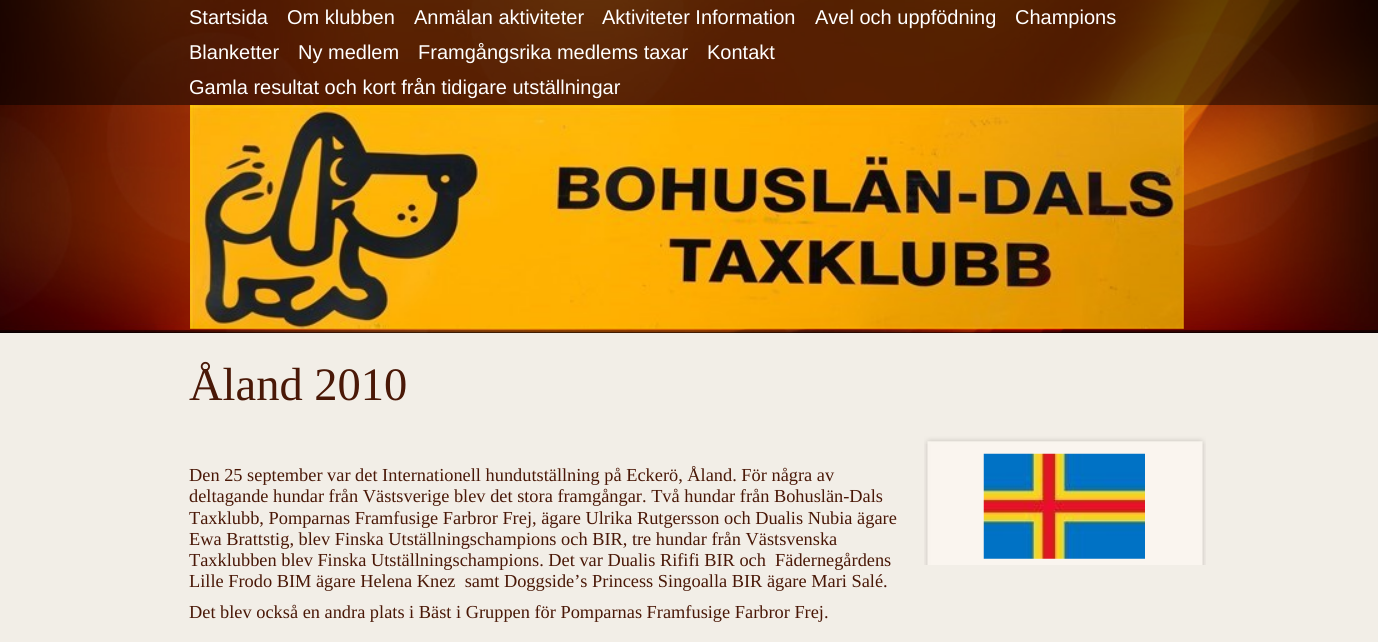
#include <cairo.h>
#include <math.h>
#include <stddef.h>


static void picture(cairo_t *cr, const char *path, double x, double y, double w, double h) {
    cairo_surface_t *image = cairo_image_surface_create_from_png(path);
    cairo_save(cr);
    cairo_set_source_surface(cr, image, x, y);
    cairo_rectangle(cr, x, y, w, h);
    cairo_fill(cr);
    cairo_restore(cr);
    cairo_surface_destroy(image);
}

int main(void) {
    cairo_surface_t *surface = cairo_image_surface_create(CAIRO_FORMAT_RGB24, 1378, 642);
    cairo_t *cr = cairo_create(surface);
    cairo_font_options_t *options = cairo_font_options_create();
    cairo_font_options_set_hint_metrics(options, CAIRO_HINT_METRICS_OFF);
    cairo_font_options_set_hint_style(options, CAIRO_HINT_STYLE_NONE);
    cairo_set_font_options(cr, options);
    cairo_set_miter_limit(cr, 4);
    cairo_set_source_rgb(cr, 0, 0, 0);
    cairo_paint(cr);
    picture(cr, "img1.png", 0, 0, 1378, 333);
    cairo_set_source_rgba(cr, 0, 0, 0, 0.5);
    cairo_rectangle(cr, 0, 0, 1378, 105);
    cairo_fill(cr);
    cairo_select_font_face(cr, "Liberation Sans", CAIRO_FONT_SLANT_NORMAL, CAIRO_FONT_WEIGHT_NORMAL);
    cairo_set_font_size(cr, 20);
    cairo_set_source_rgb(cr, 1, 1, 1);
    cairo_move_to(cr, 189, 24);
    cairo_show_text(cr, "Startsida");
    cairo_move_to(cr, 287, 24);
    cairo_show_text(cr, "Om klubben");
    cairo_move_to(cr, 414, 24);
    cairo_show_text(cr, "Anmälan aktiviteter");
    cairo_move_to(cr, 602, 24);
    cairo_show_text(cr, "Aktiviteter Information");
    cairo_move_to(cr, 815, 24);
    cairo_show_text(cr, "Avel och uppfödning");
    cairo_move_to(cr, 1015, 24);
    cairo_show_text(cr, "Champions");
    cairo_move_to(cr, 189, 59);
    cairo_show_text(cr, "Blanketter");
    cairo_move_to(cr, 298, 59);
    cairo_show_text(cr, "Ny medlem");
    cairo_move_to(cr, 418, 59);
    cairo_show_text(cr, "Framgångsrika medlems taxar");
    cairo_move_to(cr, 707, 59);
    cairo_show_text(cr, "Kontakt");
    cairo_move_to(cr, 189, 94);
    cairo_show_text(cr, "Gamla resultat och kort från tidigare utställningar");
    picture(cr, "img2.png", 190, 105, 994, 224);
    cairo_set_source_rgb(cr, 0.949, 0.933, 0.906);
    cairo_rectangle(cr, 0, 333, 1378, 309);
    cairo_fill(cr);
    cairo_select_font_face(cr, "Liberation Serif", CAIRO_FONT_SLANT_NORMAL, CAIRO_FONT_WEIGHT_NORMAL);
    cairo_set_font_size(cr, 46.5);
    cairo_set_source_rgb(cr, 0.29, 0.094, 0.031);
    cairo_move_to(cr, 189, 400);
    cairo_show_text(cr, "Åland 2010");
    cairo_set_font_size(cr, 18.35);
    cairo_move_to(cr, 189, 481);
    cairo_show_text(cr, "Den 25 september var det Internationell hundutställning på Eckerö, Åland. För några av");
    cairo_move_to(cr, 189, 502);
    cairo_show_text(cr, "deltagande hundar från Västsverige blev det stora framgångar. Två hundar från Bohuslän-Dals");
    cairo_move_to(cr, 189, 524);
    cairo_show_text(cr, "Taxklubb, Pomparnas Framfusige Farbror Frej, ägare Ulrika Rutgersson och Dualis Nubia ägare");
    cairo_move_to(cr, 189, 545);
    cairo_show_text(cr, "Ewa Brattstig, blev Finska Utställningschampions och BIR, tre hundar från Västsvenska");
    cairo_move_to(cr, 189, 566);
    cairo_show_text(cr, "Taxklubben blev Finska Utställningschampions. Det var Dualis Rififi BIR och  Fädernegårdens");
    cairo_move_to(cr, 189, 587);
    cairo_show_text(cr, "Lille Frodo BIM ägare Helena Knez  samt Doggside’s Princess Singoalla BIR ägare Mari Salé.");
    cairo_move_to(cr, 189, 618);
    cairo_show_text(cr, "Det blev också en andra plats i Bäst i Gruppen för Pomparnas Framfusige Farbror Frej.");
    picture(cr, "img3.png", 924, 444, 282, 121);
    picture(cr, "img4.png", 924, 435, 282, 9);
    picture(cr, "img5.png", 983, 453, 162, 106);
    cairo_surface_write_to_png(surface, "page.png");
    cairo_font_options_destroy(options);
    cairo_destroy(cr);
    cairo_surface_destroy(surface);
    return 0;
}
